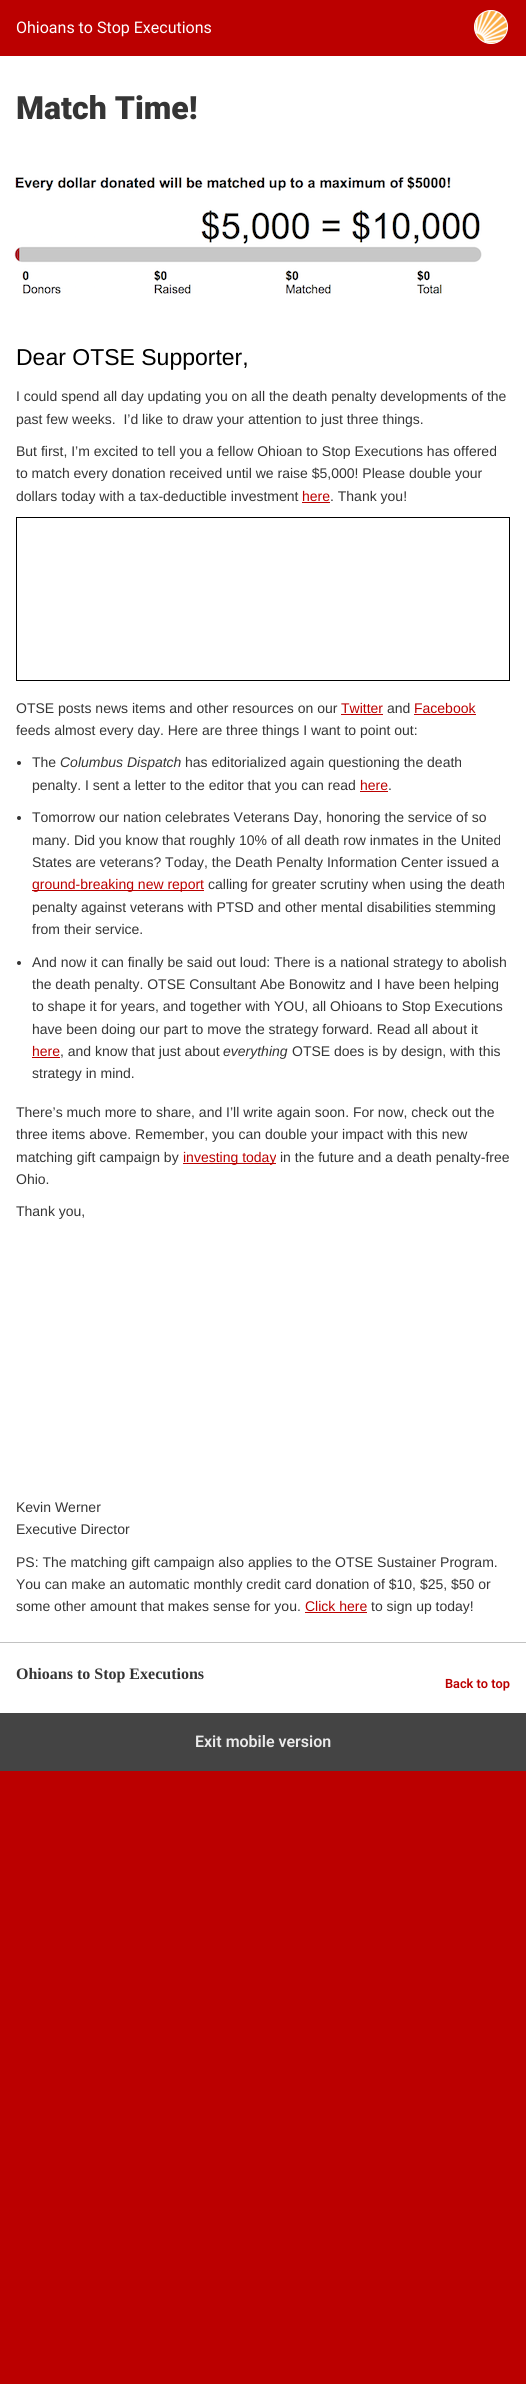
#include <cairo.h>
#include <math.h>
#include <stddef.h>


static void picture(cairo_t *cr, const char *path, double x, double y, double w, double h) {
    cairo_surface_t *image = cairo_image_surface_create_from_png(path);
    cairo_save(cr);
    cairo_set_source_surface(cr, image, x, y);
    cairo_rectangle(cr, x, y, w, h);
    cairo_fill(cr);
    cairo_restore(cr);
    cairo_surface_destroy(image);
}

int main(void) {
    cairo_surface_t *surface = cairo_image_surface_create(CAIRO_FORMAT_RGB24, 526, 2384);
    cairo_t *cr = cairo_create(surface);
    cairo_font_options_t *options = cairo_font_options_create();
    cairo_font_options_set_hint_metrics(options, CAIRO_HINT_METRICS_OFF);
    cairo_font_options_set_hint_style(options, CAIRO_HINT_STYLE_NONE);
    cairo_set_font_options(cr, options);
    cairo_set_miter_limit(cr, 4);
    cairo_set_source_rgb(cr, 0.733, 0, 0);
    cairo_paint(cr);
    cairo_set_source_rgb(cr, 1, 1, 1);
    cairo_rectangle(cr, 0, 56, 526, 1657);
    cairo_fill(cr);
    cairo_select_font_face(cr, "Roboto", CAIRO_FONT_SLANT_NORMAL, CAIRO_FONT_WEIGHT_NORMAL);
    cairo_set_font_size(cr, 16);
    cairo_move_to(cr, 16, 33);
    cairo_show_text(cr, "Ohioans to Stop Executions");
    cairo_new_path(cr);
    cairo_arc(cr, 491, 27, 16.5, 0, 2 * M_PI);
    cairo_fill_preserve(cr);
    cairo_set_line_width(cr, 1);
    cairo_stroke(cr);
    picture(cr, "img1.png", 475, 11, 32, 32);
    cairo_select_font_face(cr, "Roboto Black", CAIRO_FONT_SLANT_NORMAL, CAIRO_FONT_WEIGHT_NORMAL);
    cairo_set_font_size(cr, 32);
    cairo_set_source_rgb(cr, 0.208, 0.208, 0.208);
    cairo_move_to(cr, 16, 119);
    cairo_show_text(cr, "Match Time!");
    picture(cr, "img2.png", 14, 176, 468, 118);
    cairo_select_font_face(cr, "Liberation Sans", CAIRO_FONT_SLANT_NORMAL, CAIRO_FONT_WEIGHT_NORMAL);
    cairo_set_font_size(cr, 23);
    cairo_set_source_rgb(cr, 0, 0, 0);
    cairo_move_to(cr, 16, 365);
    cairo_show_text(cr, "Dear OTSE Supporter,");
    cairo_set_font_size(cr, 14);
    cairo_set_source_rgb(cr, 0.208, 0.208, 0.208);
    cairo_move_to(cr, 16, 401);
    cairo_show_text(cr, "I could spend all day updating you on all the death penalty developments of the");
    cairo_move_to(cr, 16, 424);
    cairo_show_text(cr, "past few weeks.  I’d like to draw your attention to just three things.");
    cairo_move_to(cr, 16, 456);
    cairo_show_text(cr, "But first, I’m excited to tell you a fellow Ohioan to Stop Executions has offered");
    cairo_move_to(cr, 16, 478);
    cairo_show_text(cr, "to match every donation received until we raise $5,000! Please double your");
    cairo_move_to(cr, 16, 501);
    cairo_show_text(cr, "dollars today with a tax-deductible investment");
    cairo_set_source_rgb(cr, 0.733, 0, 0);
    cairo_move_to(cr, 302, 501);
    cairo_show_text(cr, "here");
    cairo_rectangle(cr, 302, 502, 28, 1);
    cairo_fill(cr);
    cairo_set_source_rgb(cr, 0.208, 0.208, 0.208);
    cairo_move_to(cr, 330, 501);
    cairo_show_text(cr, ". Thank you!");
    cairo_rectangle(cr, 16.5, 517.5, 493, 163);
    cairo_set_source_rgb(cr, 0, 0, 0);
    cairo_stroke(cr);
    cairo_set_source_rgb(cr, 0.208, 0.208, 0.208);
    cairo_move_to(cr, 16, 713);
    cairo_show_text(cr, "OTSE posts news items and other resources on our");
    cairo_set_source_rgb(cr, 0.733, 0, 0);
    cairo_move_to(cr, 341, 713);
    cairo_show_text(cr, "Twitter");
    cairo_rectangle(cr, 341, 714, 42, 1);
    cairo_fill(cr);
    cairo_set_source_rgb(cr, 0.208, 0.208, 0.208);
    cairo_move_to(cr, 387, 713);
    cairo_show_text(cr, "and");
    cairo_set_source_rgb(cr, 0.733, 0, 0);
    cairo_move_to(cr, 414, 713);
    cairo_show_text(cr, "Facebook");
    cairo_rectangle(cr, 414, 714, 62, 1);
    cairo_fill(cr);
    cairo_set_source_rgb(cr, 0.208, 0.208, 0.208);
    cairo_move_to(cr, 16, 735);
    cairo_show_text(cr, "feeds almost every day. Here are three things I want to point out:");
    cairo_new_path(cr);
    cairo_arc(cr, 19, 763, 2, 0, 2 * M_PI);
    cairo_fill(cr);
    cairo_move_to(cr, 32, 767);
    cairo_show_text(cr, "The");
    cairo_select_font_face(cr, "Liberation Sans", CAIRO_FONT_SLANT_ITALIC, CAIRO_FONT_WEIGHT_NORMAL);
    cairo_move_to(cr, 60, 767);
    cairo_show_text(cr, "Columbus Dispatch");
    cairo_select_font_face(cr, "Liberation Sans", CAIRO_FONT_SLANT_NORMAL, CAIRO_FONT_WEIGHT_NORMAL);
    cairo_move_to(cr, 185, 767);
    cairo_show_text(cr, "has editorialized again questioning the death");
    cairo_move_to(cr, 32, 790);
    cairo_show_text(cr, "penalty. I sent a letter to the editor that you can read");
    cairo_set_source_rgb(cr, 0.733, 0, 0);
    cairo_move_to(cr, 360, 790);
    cairo_show_text(cr, "here");
    cairo_rectangle(cr, 360, 791, 28, 1);
    cairo_fill(cr);
    cairo_set_source_rgb(cr, 0.208, 0.208, 0.208);
    cairo_move_to(cr, 388, 790);
    cairo_show_text(cr, ".");
    cairo_new_path(cr);
    cairo_arc(cr, 19, 818, 2, 0, 2 * M_PI);
    cairo_fill(cr);
    cairo_move_to(cr, 32, 822);
    cairo_show_text(cr, "Tomorrow our nation celebrates Veterans Day, honoring the service of so");
    cairo_move_to(cr, 32, 845);
    cairo_show_text(cr, "many. Did you know that roughly 10% of all death row inmates in the United");
    cairo_move_to(cr, 32, 867);
    cairo_show_text(cr, "States are veterans? Today, the Death Penalty Information Center issued a");
    cairo_set_source_rgb(cr, 0.733, 0, 0);
    cairo_rectangle(cr, 32, 890, 172, 1);
    cairo_fill(cr);
    cairo_move_to(cr, 32, 889);
    cairo_show_text(cr, "ground-breaking new report");
    cairo_set_source_rgb(cr, 0.208, 0.208, 0.208);
    cairo_move_to(cr, 208, 889);
    cairo_show_text(cr, "calling for greater scrutiny when using the death");
    cairo_move_to(cr, 32, 912);
    cairo_show_text(cr, "penalty against veterans with PTSD and other mental disabilities stemming");
    cairo_move_to(cr, 32, 934);
    cairo_show_text(cr, "from their service.");
    cairo_new_path(cr);
    cairo_arc(cr, 19, 963, 2, 0, 2 * M_PI);
    cairo_fill(cr);
    cairo_move_to(cr, 32, 967);
    cairo_show_text(cr, "And now it can finally be said out loud: There is a national strategy to abolish");
    cairo_move_to(cr, 32, 989);
    cairo_show_text(cr, "the death penalty. OTSE Consultant Abe Bonowitz and I have been helping");
    cairo_move_to(cr, 32, 1011);
    cairo_show_text(cr, "to shape it for years, and together with YOU, all Ohioans to Stop Executions");
    cairo_move_to(cr, 32, 1034);
    cairo_show_text(cr, "have been doing our part to move the strategy forward. Read all about it");
    cairo_set_source_rgb(cr, 0.733, 0, 0);
    cairo_move_to(cr, 32, 1056);
    cairo_show_text(cr, "here");
    cairo_rectangle(cr, 32, 1057, 28, 1);
    cairo_fill(cr);
    cairo_set_source_rgb(cr, 0.208, 0.208, 0.208);
    cairo_move_to(cr, 60, 1056);
    cairo_show_text(cr, ", and know that just about");
    cairo_select_font_face(cr, "Liberation Sans", CAIRO_FONT_SLANT_ITALIC, CAIRO_FONT_WEIGHT_NORMAL);
    cairo_move_to(cr, 223, 1056);
    cairo_show_text(cr, "everything");
    cairo_select_font_face(cr, "Liberation Sans", CAIRO_FONT_SLANT_NORMAL, CAIRO_FONT_WEIGHT_NORMAL);
    cairo_move_to(cr, 292, 1056);
    cairo_show_text(cr, "OTSE does is by design, with this");
    cairo_move_to(cr, 32, 1078);
    cairo_show_text(cr, "strategy in mind.");
    cairo_move_to(cr, 16, 1117);
    cairo_show_text(cr, "There’s much more to share, and I’ll write again soon. For now, check out the");
    cairo_move_to(cr, 16, 1139);
    cairo_show_text(cr, "three items above. Remember, you can double your impact with this new");
    cairo_move_to(cr, 16, 1162);
    cairo_show_text(cr, "matching gift campaign by");
    cairo_set_source_rgb(cr, 0.733, 0, 0);
    cairo_rectangle(cr, 183, 1163, 93, 1);
    cairo_fill(cr);
    cairo_move_to(cr, 183, 1162);
    cairo_show_text(cr, "investing today");
    cairo_set_source_rgb(cr, 0.208, 0.208, 0.208);
    cairo_move_to(cr, 280, 1162);
    cairo_show_text(cr, "in the future and a death penalty-free");
    cairo_move_to(cr, 16, 1184);
    cairo_show_text(cr, "Ohio.");
    cairo_move_to(cr, 16, 1216);
    cairo_show_text(cr, "Thank you,");
    cairo_move_to(cr, 16, 1512);
    cairo_show_text(cr, "Kevin Werner");
    cairo_move_to(cr, 16, 1534);
    cairo_show_text(cr, "Executive Director");
    cairo_move_to(cr, 16, 1567);
    cairo_show_text(cr, "PS: The matching gift campaign also applies to the OTSE Sustainer Program.");
    cairo_move_to(cr, 16, 1589);
    cairo_show_text(cr, "You can make an automatic monthly credit card donation of $10, $25, $50 or");
    cairo_move_to(cr, 16, 1611);
    cairo_show_text(cr, "some other amount that makes sense for you.");
    cairo_set_source_rgb(cr, 0.733, 0, 0);
    cairo_move_to(cr, 305, 1611);
    cairo_show_text(cr, "Click here");
    cairo_rectangle(cr, 305, 1612, 62, 1);
    cairo_fill(cr);
    cairo_set_source_rgb(cr, 0.208, 0.208, 0.208);
    cairo_move_to(cr, 371, 1611);
    cairo_show_text(cr, "to sign up today!");
    cairo_set_source_rgb(cr, 0.761, 0.761, 0.761);
    cairo_rectangle(cr, 0, 1642, 526, 1);
    cairo_fill(cr);
    cairo_select_font_face(cr, "Liberation Serif", CAIRO_FONT_SLANT_NORMAL, CAIRO_FONT_WEIGHT_BOLD);
    cairo_set_font_size(cr, 16);
    cairo_set_source_rgb(cr, 0.208, 0.208, 0.208);
    cairo_move_to(cr, 16, 1679);
    cairo_show_text(cr, "Ohioans to Stop Executions");
    cairo_select_font_face(cr, "Roboto SemiBold", CAIRO_FONT_SLANT_NORMAL, CAIRO_FONT_WEIGHT_NORMAL);
    cairo_set_font_size(cr, 12.75);
    cairo_set_source_rgb(cr, 0.733, 0, 0);
    cairo_move_to(cr, 445, 1688);
    cairo_show_text(cr, "Back to top");
    cairo_set_source_rgb(cr, 0.267, 0.267, 0.267);
    cairo_rectangle(cr, 0, 1713, 526, 58);
    cairo_fill(cr);
    cairo_set_font_size(cr, 16);
    cairo_set_source_rgb(cr, 0.918, 0.918, 0.918);
    cairo_move_to(cr, 195, 1747);
    cairo_show_text(cr, "Exit mobile version");
    cairo_surface_write_to_png(surface, "page.png");
    cairo_font_options_destroy(options);
    cairo_destroy(cr);
    cairo_surface_destroy(surface);
    return 0;
}
